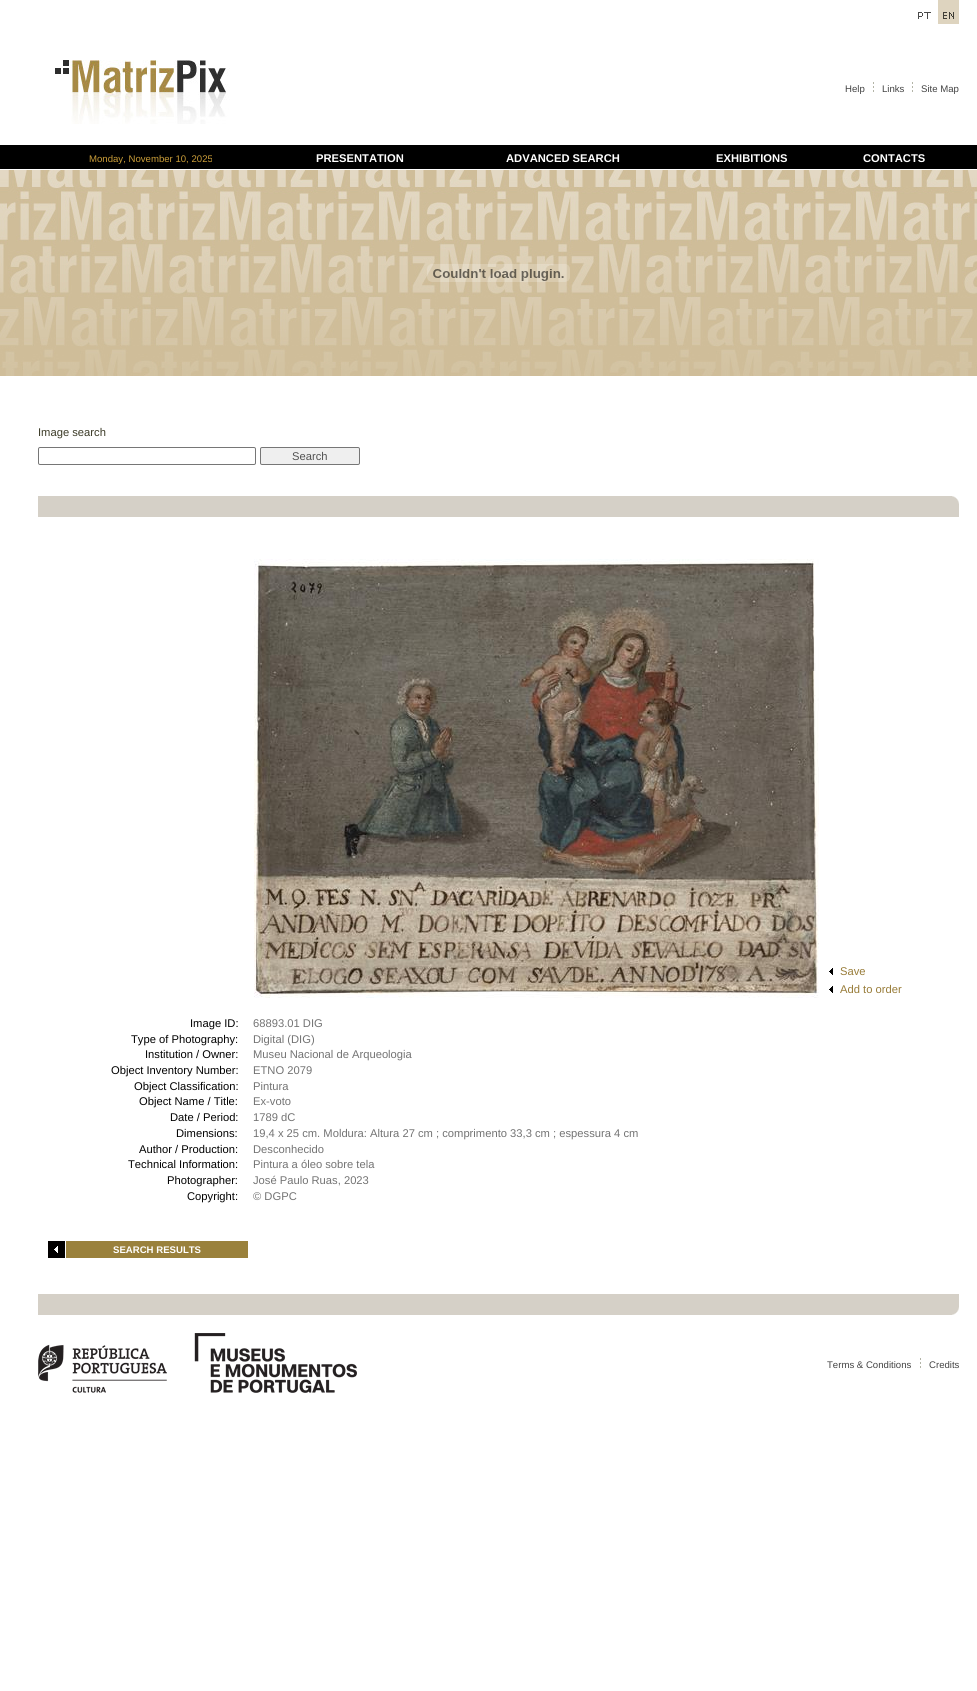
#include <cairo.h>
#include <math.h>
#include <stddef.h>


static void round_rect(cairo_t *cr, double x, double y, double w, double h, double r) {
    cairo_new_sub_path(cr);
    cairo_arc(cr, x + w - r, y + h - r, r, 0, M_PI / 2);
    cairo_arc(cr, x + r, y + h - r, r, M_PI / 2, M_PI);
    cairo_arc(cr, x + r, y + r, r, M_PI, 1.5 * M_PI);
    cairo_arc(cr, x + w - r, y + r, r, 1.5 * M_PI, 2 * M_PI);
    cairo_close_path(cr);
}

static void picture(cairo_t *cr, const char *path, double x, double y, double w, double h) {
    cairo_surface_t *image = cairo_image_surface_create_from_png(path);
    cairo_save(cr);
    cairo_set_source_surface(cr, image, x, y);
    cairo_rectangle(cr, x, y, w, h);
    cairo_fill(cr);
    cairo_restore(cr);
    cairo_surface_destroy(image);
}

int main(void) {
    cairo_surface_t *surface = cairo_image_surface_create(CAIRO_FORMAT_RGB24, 977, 1691);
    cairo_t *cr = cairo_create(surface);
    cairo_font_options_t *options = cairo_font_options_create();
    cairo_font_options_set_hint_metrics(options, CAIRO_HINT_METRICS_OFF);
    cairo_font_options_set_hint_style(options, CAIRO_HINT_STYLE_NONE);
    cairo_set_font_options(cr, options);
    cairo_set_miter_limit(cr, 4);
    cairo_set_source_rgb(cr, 1, 1, 1);
    cairo_paint(cr);
    picture(cr, "img1.png", 918, 12, 13, 7);
    picture(cr, "img2.png", 938, 0, 21, 24);
    picture(cr, "img3.png", 55, 60, 175, 64);
    cairo_select_font_face(cr, "Liberation Sans", CAIRO_FONT_SLANT_NORMAL, CAIRO_FONT_WEIGHT_NORMAL);
    cairo_set_font_size(cr, 9.6);
    cairo_set_source_rgb(cr, 0.263, 0.263, 0.263);
    cairo_move_to(cr, 845, 92);
    cairo_show_text(cr, "Help");
    picture(cr, "img4.png", 873, 82, 1, 10);
    cairo_move_to(cr, 882, 92);
    cairo_show_text(cr, "Links");
    picture(cr, "img4.png", 912, 82, 1, 10);
    cairo_move_to(cr, 921, 92);
    cairo_show_text(cr, "Site Map");
    cairo_set_source_rgb(cr, 0, 0, 0);
    cairo_rectangle(cr, 0, 145, 977, 24);
    cairo_fill(cr);
    cairo_set_source_rgb(cr, 0.796, 0.62, 0.224);
    cairo_move_to(cr, 89, 162);
    cairo_show_text(cr, "Monday, November 10, 2025");
    cairo_select_font_face(cr, "Liberation Sans", CAIRO_FONT_SLANT_NORMAL, CAIRO_FONT_WEIGHT_BOLD);
    cairo_set_font_size(cr, 11.2);
    cairo_set_source_rgb(cr, 1, 1, 1);
    cairo_move_to(cr, 316, 162);
    cairo_show_text(cr, "PRESENTATION");
    cairo_move_to(cr, 506, 162);
    cairo_show_text(cr, "ADVANCED SEARCH");
    cairo_move_to(cr, 716, 162);
    cairo_show_text(cr, "EXHIBITIONS");
    cairo_move_to(cr, 863, 162);
    cairo_show_text(cr, "CONTACTS");
    picture(cr, "img5.png", 0, 170, 977, 206);
    picture(cr, "img6.png", 427, 264, 143, 18);
    cairo_select_font_face(cr, "Liberation Sans", CAIRO_FONT_SLANT_NORMAL, CAIRO_FONT_WEIGHT_NORMAL);
    cairo_set_source_rgb(cr, 0.231, 0.227, 0.149);
    cairo_move_to(cr, 38, 436);
    cairo_show_text(cr, "Image search");
    round_rect(cr, 38.5, 447.5, 217, 17, 1.5);
    cairo_set_source_rgb(cr, 0.463, 0.463, 0.463);
    cairo_set_line_width(cr, 1);
    cairo_stroke(cr);
    cairo_set_source_rgb(cr, 0.937, 0.937, 0.937);
    round_rect(cr, 260.5, 447.5, 99, 17, 1.5);
    cairo_fill_preserve(cr);
    cairo_set_source_rgb(cr, 0.463, 0.463, 0.463);
    cairo_stroke(cr);
    cairo_set_source_rgb(cr, 0.322, 0.322, 0.322);
    cairo_move_to(cr, 292, 460);
    cairo_show_text(cr, "Search");
    cairo_set_source_rgb(cr, 0.835, 0.816, 0.78);
    cairo_rectangle(cr, 38, 496, 921, 21);
    cairo_fill(cr);
    picture(cr, "img7.png", 952, 496, 7, 8);
    picture(cr, "img8.png", 254, 559, 565, 439);
    picture(cr, "img9.png", 829, 968, 4, 7);
    cairo_set_source_rgb(cr, 0.596, 0.486, 0.224);
    cairo_move_to(cr, 840, 975);
    cairo_show_text(cr, "Save");
    picture(cr, "img9.png", 829, 986, 4, 7);
    cairo_move_to(cr, 840, 993);
    cairo_show_text(cr, "Add to order");
    cairo_set_source_rgb(cr, 0.004, 0.004, 0.004);
    cairo_move_to(cr, 190, 1027);
    cairo_show_text(cr, "Image ID:");
    cairo_set_source_rgb(cr, 0.451, 0.451, 0.451);
    cairo_move_to(cr, 253, 1027);
    cairo_show_text(cr, "68893.01 DIG");
    cairo_set_source_rgb(cr, 0.004, 0.004, 0.004);
    cairo_move_to(cr, 131, 1043);
    cairo_show_text(cr, "Type of Photography:");
    cairo_set_source_rgb(cr, 0.451, 0.451, 0.451);
    cairo_move_to(cr, 253, 1043);
    cairo_show_text(cr, "Digital (DIG)");
    cairo_set_source_rgb(cr, 0.004, 0.004, 0.004);
    cairo_move_to(cr, 145, 1058);
    cairo_show_text(cr, "Institution / Owner:");
    cairo_set_source_rgb(cr, 0.451, 0.451, 0.451);
    cairo_move_to(cr, 253, 1058);
    cairo_show_text(cr, "Museu Nacional de Arqueologia");
    cairo_set_source_rgb(cr, 0.004, 0.004, 0.004);
    cairo_move_to(cr, 111, 1074);
    cairo_show_text(cr, "Object Inventory Number:");
    cairo_set_source_rgb(cr, 0.451, 0.451, 0.451);
    cairo_move_to(cr, 253, 1074);
    cairo_show_text(cr, "ETNO 2079");
    cairo_set_source_rgb(cr, 0.004, 0.004, 0.004);
    cairo_move_to(cr, 134, 1090);
    cairo_show_text(cr, "Object Classification:");
    cairo_set_source_rgb(cr, 0.451, 0.451, 0.451);
    cairo_move_to(cr, 253, 1090);
    cairo_show_text(cr, "Pintura");
    cairo_set_source_rgb(cr, 0.004, 0.004, 0.004);
    cairo_move_to(cr, 139, 1105);
    cairo_show_text(cr, "Object Name / Title:");
    cairo_set_source_rgb(cr, 0.451, 0.451, 0.451);
    cairo_move_to(cr, 253, 1105);
    cairo_show_text(cr, "Ex-voto");
    cairo_set_source_rgb(cr, 0.004, 0.004, 0.004);
    cairo_move_to(cr, 170, 1121);
    cairo_show_text(cr, "Date / Period:");
    cairo_set_source_rgb(cr, 0.451, 0.451, 0.451);
    cairo_move_to(cr, 253, 1121);
    cairo_show_text(cr, "1789 dC");
    cairo_set_source_rgb(cr, 0.004, 0.004, 0.004);
    cairo_move_to(cr, 176, 1137);
    cairo_show_text(cr, "Dimensions:");
    cairo_set_source_rgb(cr, 0.451, 0.451, 0.451);
    cairo_move_to(cr, 253, 1137);
    cairo_show_text(cr, "19,4 x 25 cm. Moldura: Altura 27 cm ; comprimento 33,3 cm ; espessura 4 cm");
    cairo_set_source_rgb(cr, 0.004, 0.004, 0.004);
    cairo_move_to(cr, 139, 1153);
    cairo_show_text(cr, "Author / Production:");
    cairo_set_source_rgb(cr, 0.451, 0.451, 0.451);
    cairo_move_to(cr, 253, 1153);
    cairo_show_text(cr, "Desconhecido");
    cairo_set_source_rgb(cr, 0.004, 0.004, 0.004);
    cairo_move_to(cr, 128, 1168);
    cairo_show_text(cr, "Technical Information:");
    cairo_set_source_rgb(cr, 0.451, 0.451, 0.451);
    cairo_move_to(cr, 253, 1168);
    cairo_show_text(cr, "Pintura a óleo sobre tela");
    cairo_set_source_rgb(cr, 0.004, 0.004, 0.004);
    cairo_move_to(cr, 167, 1184);
    cairo_show_text(cr, "Photographer:");
    cairo_set_source_rgb(cr, 0.451, 0.451, 0.451);
    cairo_move_to(cr, 253, 1184);
    cairo_show_text(cr, "José Paulo Ruas, 2023");
    cairo_set_source_rgb(cr, 0.004, 0.004, 0.004);
    cairo_move_to(cr, 187, 1200);
    cairo_show_text(cr, "Copyright:");
    cairo_set_source_rgb(cr, 0.451, 0.451, 0.451);
    cairo_move_to(cr, 253, 1200);
    cairo_show_text(cr, "© DGPC");
    picture(cr, "img10.png", 48, 1241, 17, 17);
    cairo_set_source_rgb(cr, 0.604, 0.506, 0.235);
    cairo_rectangle(cr, 66, 1241, 182, 17);
    cairo_fill(cr);
    cairo_select_font_face(cr, "Liberation Sans", CAIRO_FONT_SLANT_NORMAL, CAIRO_FONT_WEIGHT_BOLD);
    cairo_set_font_size(cr, 9.6);
    cairo_set_source_rgb(cr, 1, 1, 1);
    cairo_move_to(cr, 113, 1253);
    cairo_show_text(cr, "SEARCH RESULTS");
    cairo_set_source_rgb(cr, 0.835, 0.816, 0.78);
    cairo_rectangle(cr, 38, 1294, 921, 21);
    cairo_fill(cr);
    picture(cr, "img11.png", 952, 1307, 7, 8);
    picture(cr, "img12.png", 38, 1333, 319, 60);
    cairo_select_font_face(cr, "Liberation Sans", CAIRO_FONT_SLANT_NORMAL, CAIRO_FONT_WEIGHT_NORMAL);
    cairo_set_source_rgb(cr, 0.263, 0.263, 0.263);
    cairo_move_to(cr, 827, 1368);
    cairo_show_text(cr, "Terms & Conditions");
    picture(cr, "img4.png", 920, 1358, 1, 10);
    cairo_move_to(cr, 929, 1368);
    cairo_show_text(cr, "Credits");
    cairo_surface_write_to_png(surface, "page.png");
    cairo_font_options_destroy(options);
    cairo_destroy(cr);
    cairo_surface_destroy(surface);
    return 0;
}
